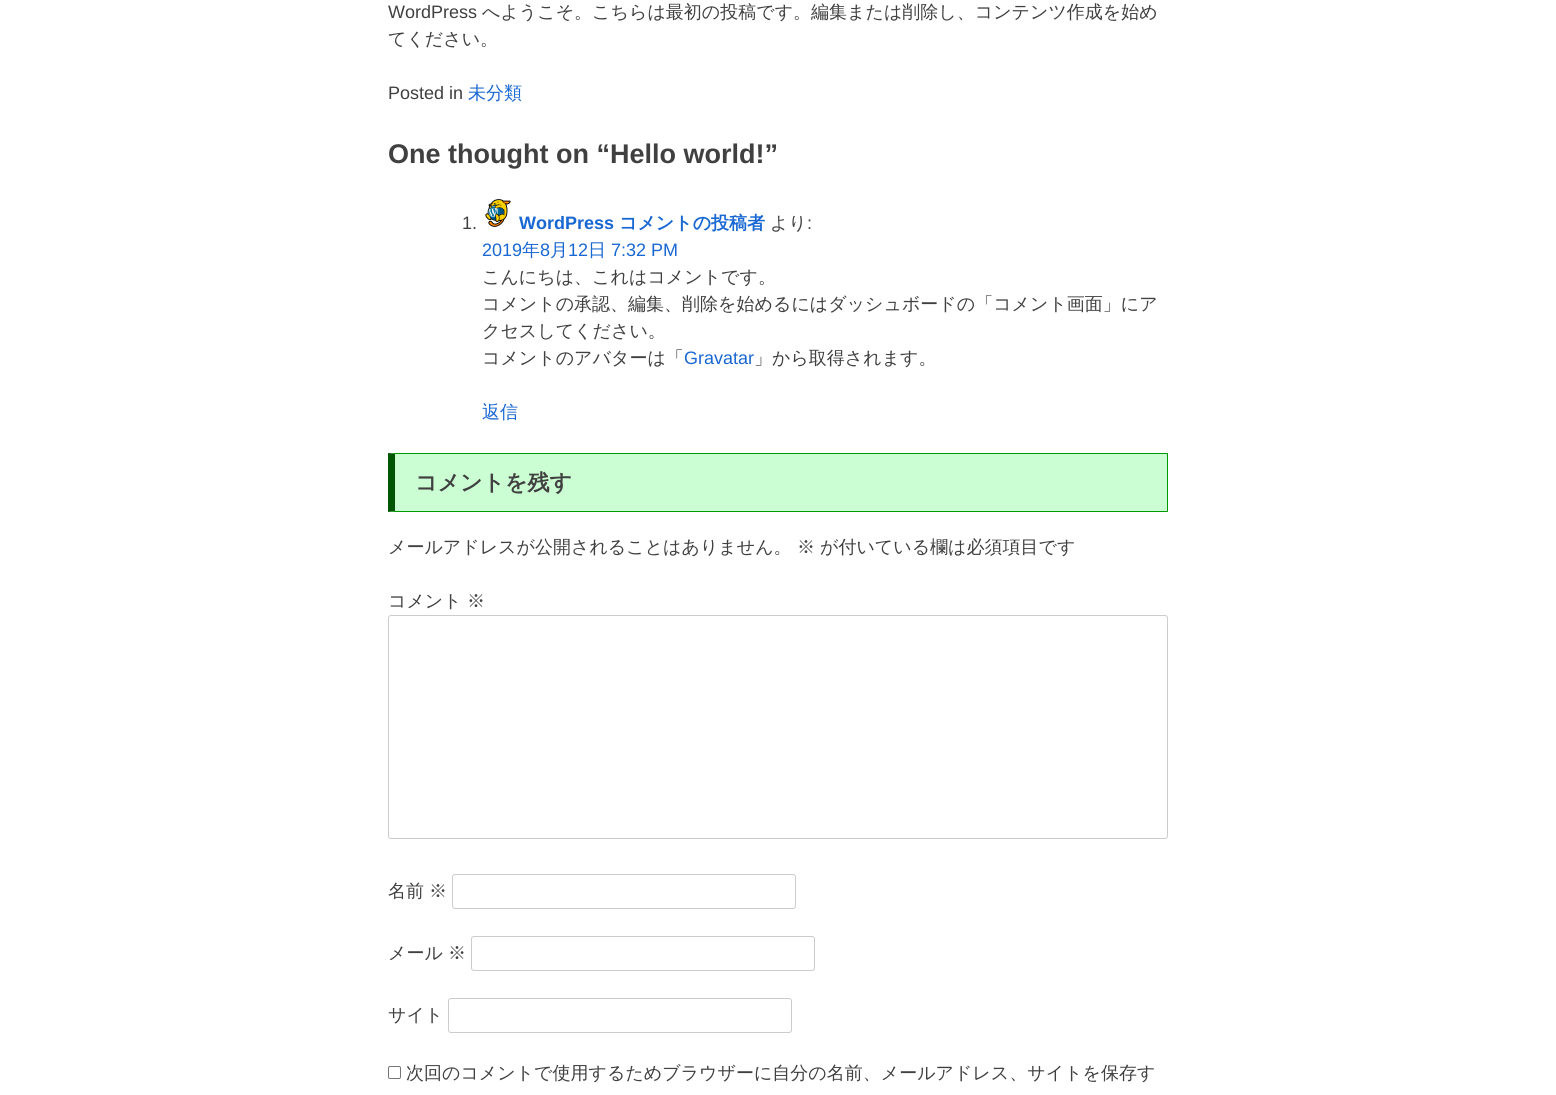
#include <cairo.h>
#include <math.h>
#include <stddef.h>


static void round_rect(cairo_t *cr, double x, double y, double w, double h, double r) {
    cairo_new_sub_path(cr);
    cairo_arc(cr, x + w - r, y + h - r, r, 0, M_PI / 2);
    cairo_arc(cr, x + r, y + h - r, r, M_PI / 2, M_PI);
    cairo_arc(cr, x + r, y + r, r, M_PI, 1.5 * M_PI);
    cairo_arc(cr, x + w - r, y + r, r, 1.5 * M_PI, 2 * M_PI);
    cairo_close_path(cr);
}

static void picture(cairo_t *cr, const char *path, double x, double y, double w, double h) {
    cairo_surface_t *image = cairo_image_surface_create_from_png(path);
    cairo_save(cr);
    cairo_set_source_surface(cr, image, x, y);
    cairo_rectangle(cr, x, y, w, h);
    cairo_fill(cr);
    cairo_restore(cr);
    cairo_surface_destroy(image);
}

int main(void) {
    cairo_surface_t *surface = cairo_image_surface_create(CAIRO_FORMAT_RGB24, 1556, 1095);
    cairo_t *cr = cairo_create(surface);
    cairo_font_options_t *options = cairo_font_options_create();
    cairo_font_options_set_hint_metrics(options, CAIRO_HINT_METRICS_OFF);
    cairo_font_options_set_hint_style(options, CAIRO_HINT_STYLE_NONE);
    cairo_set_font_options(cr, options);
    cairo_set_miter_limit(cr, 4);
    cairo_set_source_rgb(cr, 1, 1, 1);
    cairo_paint(cr);
    cairo_select_font_face(cr, "Liberation Sans", CAIRO_FONT_SLANT_NORMAL, CAIRO_FONT_WEIGHT_NORMAL);
    cairo_set_font_size(cr, 18);
    cairo_set_source_rgb(cr, 0.251, 0.251, 0.251);
    cairo_move_to(cr, 388, 18);
    cairo_show_text(cr, "WordPress");
    cairo_select_font_face(cr, "WenQuanYi Zen Hei Medium", CAIRO_FONT_SLANT_NORMAL, CAIRO_FONT_WEIGHT_NORMAL);
    cairo_move_to(cr, 482, 18);
    cairo_show_text(cr, "へようこそ。こちらは最初の投稿です。編集または削除し、コンテンツ作成を始め");
    cairo_move_to(cr, 388, 45);
    cairo_show_text(cr, "てください。");
    cairo_select_font_face(cr, "Liberation Sans", CAIRO_FONT_SLANT_NORMAL, CAIRO_FONT_WEIGHT_NORMAL);
    cairo_move_to(cr, 388, 99);
    cairo_show_text(cr, "Posted in");
    cairo_select_font_face(cr, "WenQuanYi Zen Hei Medium", CAIRO_FONT_SLANT_NORMAL, CAIRO_FONT_WEIGHT_NORMAL);
    cairo_set_source_rgb(cr, 0.098, 0.404, 0.824);
    cairo_move_to(cr, 468, 99);
    cairo_show_text(cr, "未分類");
    cairo_select_font_face(cr, "Liberation Sans", CAIRO_FONT_SLANT_NORMAL, CAIRO_FONT_WEIGHT_BOLD);
    cairo_set_font_size(cr, 27);
    cairo_set_source_rgb(cr, 0.251, 0.251, 0.251);
    cairo_move_to(cr, 388, 163);
    cairo_show_text(cr, "One thought on “Hello world!”");
    cairo_select_font_face(cr, "Liberation Sans", CAIRO_FONT_SLANT_NORMAL, CAIRO_FONT_WEIGHT_NORMAL);
    cairo_set_font_size(cr, 18);
    cairo_move_to(cr, 462, 229);
    cairo_show_text(cr, "1.");
    picture(cr, "img1.png", 485, 199, 26, 28);
    cairo_select_font_face(cr, "Liberation Sans", CAIRO_FONT_SLANT_NORMAL, CAIRO_FONT_WEIGHT_BOLD);
    cairo_set_source_rgb(cr, 0.098, 0.404, 0.824);
    cairo_move_to(cr, 519, 229);
    cairo_show_text(cr, "WordPress");
    cairo_select_font_face(cr, "WenQuanYi Zen Hei", CAIRO_FONT_SLANT_NORMAL, CAIRO_FONT_WEIGHT_BOLD);
    cairo_move_to(cr, 619, 229);
    cairo_show_text(cr, "コメントの投稿者");
    cairo_select_font_face(cr, "WenQuanYi Zen Hei Medium", CAIRO_FONT_SLANT_NORMAL, CAIRO_FONT_WEIGHT_NORMAL);
    cairo_set_source_rgb(cr, 0.251, 0.251, 0.251);
    cairo_move_to(cr, 770, 229);
    cairo_show_text(cr, "より");
    cairo_select_font_face(cr, "Liberation Sans", CAIRO_FONT_SLANT_NORMAL, CAIRO_FONT_WEIGHT_NORMAL);
    cairo_move_to(cr, 807, 229);
    cairo_show_text(cr, ":");
    cairo_set_source_rgb(cr, 0.098, 0.404, 0.824);
    cairo_move_to(cr, 482, 256);
    cairo_show_text(cr, "2019");
    cairo_select_font_face(cr, "WenQuanYi Zen Hei Medium", CAIRO_FONT_SLANT_NORMAL, CAIRO_FONT_WEIGHT_NORMAL);
    cairo_move_to(cr, 522, 256);
    cairo_show_text(cr, "年");
    cairo_select_font_face(cr, "Liberation Sans", CAIRO_FONT_SLANT_NORMAL, CAIRO_FONT_WEIGHT_NORMAL);
    cairo_move_to(cr, 540, 256);
    cairo_show_text(cr, "8");
    cairo_select_font_face(cr, "WenQuanYi Zen Hei Medium", CAIRO_FONT_SLANT_NORMAL, CAIRO_FONT_WEIGHT_NORMAL);
    cairo_move_to(cr, 550, 256);
    cairo_show_text(cr, "月");
    cairo_select_font_face(cr, "Liberation Sans", CAIRO_FONT_SLANT_NORMAL, CAIRO_FONT_WEIGHT_NORMAL);
    cairo_move_to(cr, 568, 256);
    cairo_show_text(cr, "12");
    cairo_select_font_face(cr, "WenQuanYi Zen Hei Medium", CAIRO_FONT_SLANT_NORMAL, CAIRO_FONT_WEIGHT_NORMAL);
    cairo_move_to(cr, 588, 256);
    cairo_show_text(cr, "日");
    cairo_select_font_face(cr, "Liberation Sans", CAIRO_FONT_SLANT_NORMAL, CAIRO_FONT_WEIGHT_NORMAL);
    cairo_move_to(cr, 611, 256);
    cairo_show_text(cr, "7:32 PM");
    cairo_select_font_face(cr, "WenQuanYi Zen Hei Medium", CAIRO_FONT_SLANT_NORMAL, CAIRO_FONT_WEIGHT_NORMAL);
    cairo_set_source_rgb(cr, 0.251, 0.251, 0.251);
    cairo_move_to(cr, 482, 283);
    cairo_show_text(cr, "こんにちは、これはコメントです。");
    cairo_move_to(cr, 482, 310);
    cairo_show_text(cr, "コメントの承認、編集、削除を始めるにはダッシュボードの「コメント画面」にア");
    cairo_move_to(cr, 482, 337);
    cairo_show_text(cr, "クセスしてください。");
    cairo_move_to(cr, 482, 364);
    cairo_show_text(cr, "コメントのアバターは「");
    cairo_select_font_face(cr, "Liberation Sans", CAIRO_FONT_SLANT_NORMAL, CAIRO_FONT_WEIGHT_NORMAL);
    cairo_set_source_rgb(cr, 0.098, 0.404, 0.824);
    cairo_move_to(cr, 684, 364);
    cairo_show_text(cr, "Gravatar");
    cairo_select_font_face(cr, "WenQuanYi Zen Hei Medium", CAIRO_FONT_SLANT_NORMAL, CAIRO_FONT_WEIGHT_NORMAL);
    cairo_set_source_rgb(cr, 0.251, 0.251, 0.251);
    cairo_move_to(cr, 754, 364);
    cairo_show_text(cr, "」から取得されます。");
    cairo_set_source_rgb(cr, 0.098, 0.404, 0.824);
    cairo_move_to(cr, 482, 418);
    cairo_show_text(cr, "返信");
    cairo_set_source_rgb(cr, 0.796, 1, 0.827);
    cairo_rectangle(cr, 395, 454, 772, 57);
    cairo_fill(cr);
    cairo_set_source_rgb(cr, 0, 0.6, 0);
    cairo_new_path(cr);
    cairo_move_to(cr, 388, 453);
    cairo_line_to(cr, 1168, 453);
    cairo_line_to(cr, 1167, 454);
    cairo_line_to(cr, 395, 454);
    cairo_close_path(cr);
    cairo_fill(cr);
    cairo_rectangle(cr, 1167, 453, 1, 59);
    cairo_fill(cr);
    cairo_new_path(cr);
    cairo_move_to(cr, 1168, 512);
    cairo_line_to(cr, 388, 512);
    cairo_line_to(cr, 395, 511);
    cairo_line_to(cr, 1167, 511);
    cairo_close_path(cr);
    cairo_fill(cr);
    cairo_set_source_rgb(cr, 0, 0.333, 0);
    cairo_new_path(cr);
    cairo_move_to(cr, 388, 512);
    cairo_line_to(cr, 388, 453);
    cairo_line_to(cr, 395, 454);
    cairo_line_to(cr, 395, 511);
    cairo_close_path(cr);
    cairo_fill(cr);
    cairo_select_font_face(cr, "WenQuanYi Zen Hei", CAIRO_FONT_SLANT_NORMAL, CAIRO_FONT_WEIGHT_BOLD);
    cairo_set_font_size(cr, 22);
    cairo_set_source_rgb(cr, 0.251, 0.251, 0.251);
    cairo_move_to(cr, 415, 490);
    cairo_show_text(cr, "コメントを残す");
    cairo_select_font_face(cr, "WenQuanYi Zen Hei Medium", CAIRO_FONT_SLANT_NORMAL, CAIRO_FONT_WEIGHT_NORMAL);
    cairo_set_font_size(cr, 18);
    cairo_move_to(cr, 388, 553);
    cairo_show_text(cr, "メールアドレスが公開されることはありません。");
    cairo_move_to(cr, 797, 553);
    cairo_show_text(cr, "※");
    cairo_move_to(cr, 820, 553);
    cairo_show_text(cr, "が付いている欄は必須項目です");
    cairo_move_to(cr, 388, 607);
    cairo_show_text(cr, "コメント");
    cairo_move_to(cr, 467, 607);
    cairo_show_text(cr, "※");
    round_rect(cr, 388.5, 615.5, 779, 223, 2.5);
    cairo_set_source_rgb(cr, 0.8, 0.8, 0.8);
    cairo_set_line_width(cr, 1);
    cairo_stroke(cr);
    cairo_set_source_rgb(cr, 0.251, 0.251, 0.251);
    cairo_move_to(cr, 388, 897);
    cairo_show_text(cr, "名前");
    cairo_move_to(cr, 429, 897);
    cairo_show_text(cr, "※");
    round_rect(cr, 452.5, 874.5, 343, 34, 2.5);
    cairo_set_source_rgb(cr, 0.8, 0.8, 0.8);
    cairo_stroke(cr);
    cairo_set_source_rgb(cr, 0.251, 0.251, 0.251);
    cairo_move_to(cr, 388, 959);
    cairo_show_text(cr, "メール");
    cairo_move_to(cr, 448, 959);
    cairo_show_text(cr, "※");
    round_rect(cr, 471.5, 936.5, 343, 34, 2.5);
    cairo_set_source_rgb(cr, 0.8, 0.8, 0.8);
    cairo_stroke(cr);
    cairo_set_source_rgb(cr, 0.251, 0.251, 0.251);
    cairo_move_to(cr, 388, 1021);
    cairo_show_text(cr, "サイト");
    round_rect(cr, 448.5, 998.5, 343, 34, 2.5);
    cairo_set_source_rgb(cr, 0.8, 0.8, 0.8);
    cairo_stroke(cr);
    round_rect(cr, 388.5, 1066.5, 12, 12, 1.5);
    cairo_set_source_rgb(cr, 0.463, 0.463, 0.463);
    cairo_stroke(cr);
    cairo_set_source_rgb(cr, 0.251, 0.251, 0.251);
    cairo_move_to(cr, 406, 1079);
    cairo_show_text(cr, "次回のコメントで使用するためブラウザーに自分の名前、メールアドレス、サイトを保存す");
    cairo_surface_write_to_png(surface, "page.png");
    cairo_font_options_destroy(options);
    cairo_destroy(cr);
    cairo_surface_destroy(surface);
    return 0;
}
